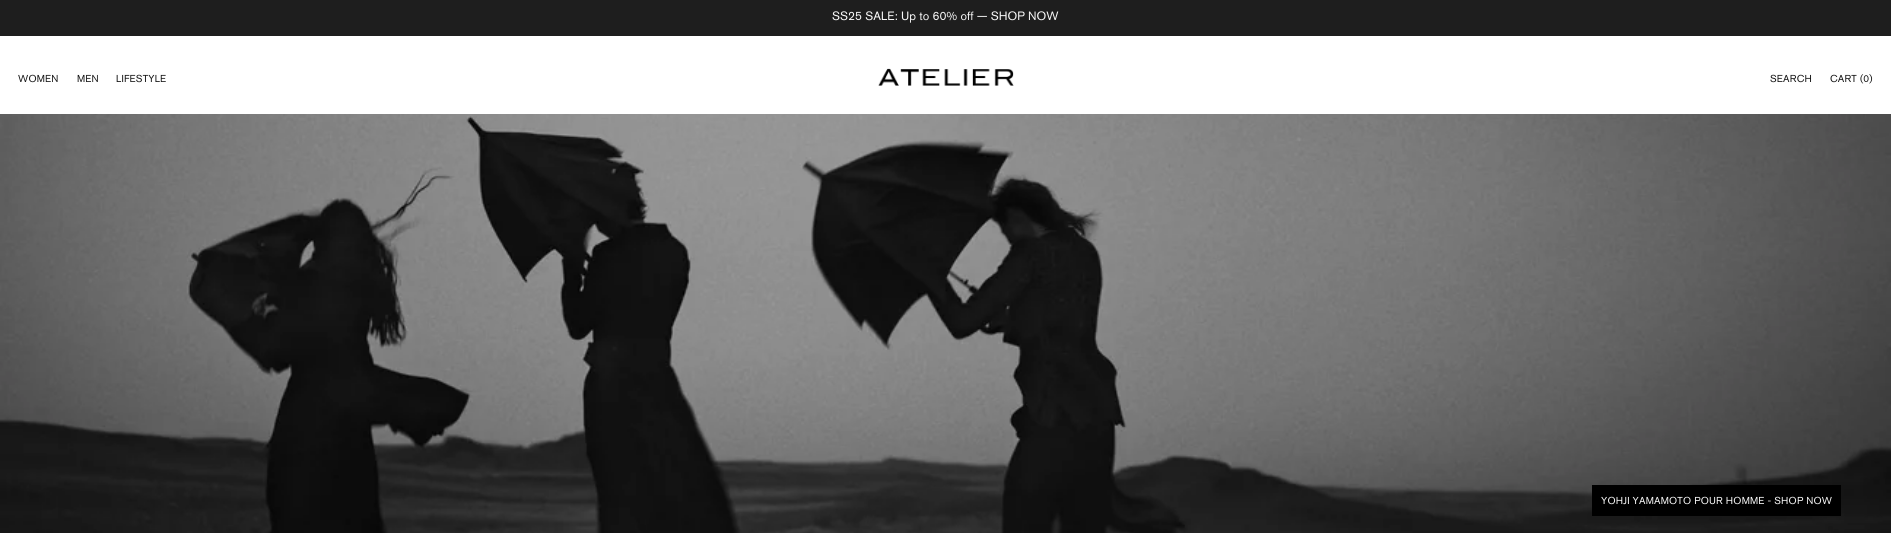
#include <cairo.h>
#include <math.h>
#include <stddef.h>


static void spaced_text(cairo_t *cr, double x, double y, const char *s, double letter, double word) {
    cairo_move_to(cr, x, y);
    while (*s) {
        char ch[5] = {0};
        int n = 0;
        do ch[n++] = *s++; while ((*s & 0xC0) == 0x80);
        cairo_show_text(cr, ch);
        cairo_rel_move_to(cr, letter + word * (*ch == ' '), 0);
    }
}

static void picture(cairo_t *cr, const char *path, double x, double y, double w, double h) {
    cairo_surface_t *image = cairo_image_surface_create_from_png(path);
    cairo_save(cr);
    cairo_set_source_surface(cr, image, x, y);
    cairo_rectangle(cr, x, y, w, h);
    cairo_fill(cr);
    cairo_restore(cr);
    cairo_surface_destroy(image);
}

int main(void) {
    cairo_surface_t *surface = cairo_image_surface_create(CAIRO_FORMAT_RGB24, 1891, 533);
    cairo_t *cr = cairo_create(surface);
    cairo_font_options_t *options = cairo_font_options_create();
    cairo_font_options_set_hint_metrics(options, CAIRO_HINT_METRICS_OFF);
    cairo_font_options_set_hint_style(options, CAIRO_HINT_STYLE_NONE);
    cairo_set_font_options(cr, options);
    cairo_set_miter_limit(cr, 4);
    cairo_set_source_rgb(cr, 1, 1, 1);
    cairo_paint(cr);
    cairo_set_source_rgb(cr, 0.118, 0.118, 0.118);
    cairo_rectangle(cr, 0, 0, 1891, 36);
    cairo_fill(cr);
    cairo_select_font_face(cr, "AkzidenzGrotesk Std", CAIRO_FONT_SLANT_NORMAL, CAIRO_FONT_WEIGHT_NORMAL);
    cairo_set_font_size(cr, 12);
    cairo_set_source_rgb(cr, 0.969, 0.969, 0.969);
    cairo_move_to(cr, 832, 20);
    cairo_show_text(cr, "SS25 SALE: Up to 60% off — SHOP NOW");
    cairo_set_font_size(cr, 10);
    cairo_set_source_rgb(cr, 0.086, 0.086, 0.086);
    spaced_text(cr, 18, 82, "WOMEN", 0.2, 0);
    spaced_text(cr, 77, 82, "MEN", 0.2, 0);
    spaced_text(cr, 116, 82, "LIFESTYLE", 0.2, 0);
    picture(cr, "img1.png", 878, 68, 136, 18);
    spaced_text(cr, 1770, 82, "SEARCH", 0.2, 0);
    spaced_text(cr, 1830, 82, "CART (0)", 0.2, 0);
    picture(cr, "img2.png", 0, 114, 1891, 419);
    cairo_set_source_rgb(cr, 0, 0, 0);
    cairo_rectangle(cr, 1592, 485, 249, 31);
    cairo_fill(cr);
    cairo_set_source_rgb(cr, 0.969, 0.969, 0.969);
    spaced_text(cr, 1601, 504, "YOHJI YAMAMOTO POUR HOMME - SHOP NOW", 0.2, 0);
    cairo_surface_write_to_png(surface, "page.png");
    cairo_font_options_destroy(options);
    cairo_destroy(cr);
    cairo_surface_destroy(surface);
    return 0;
}
